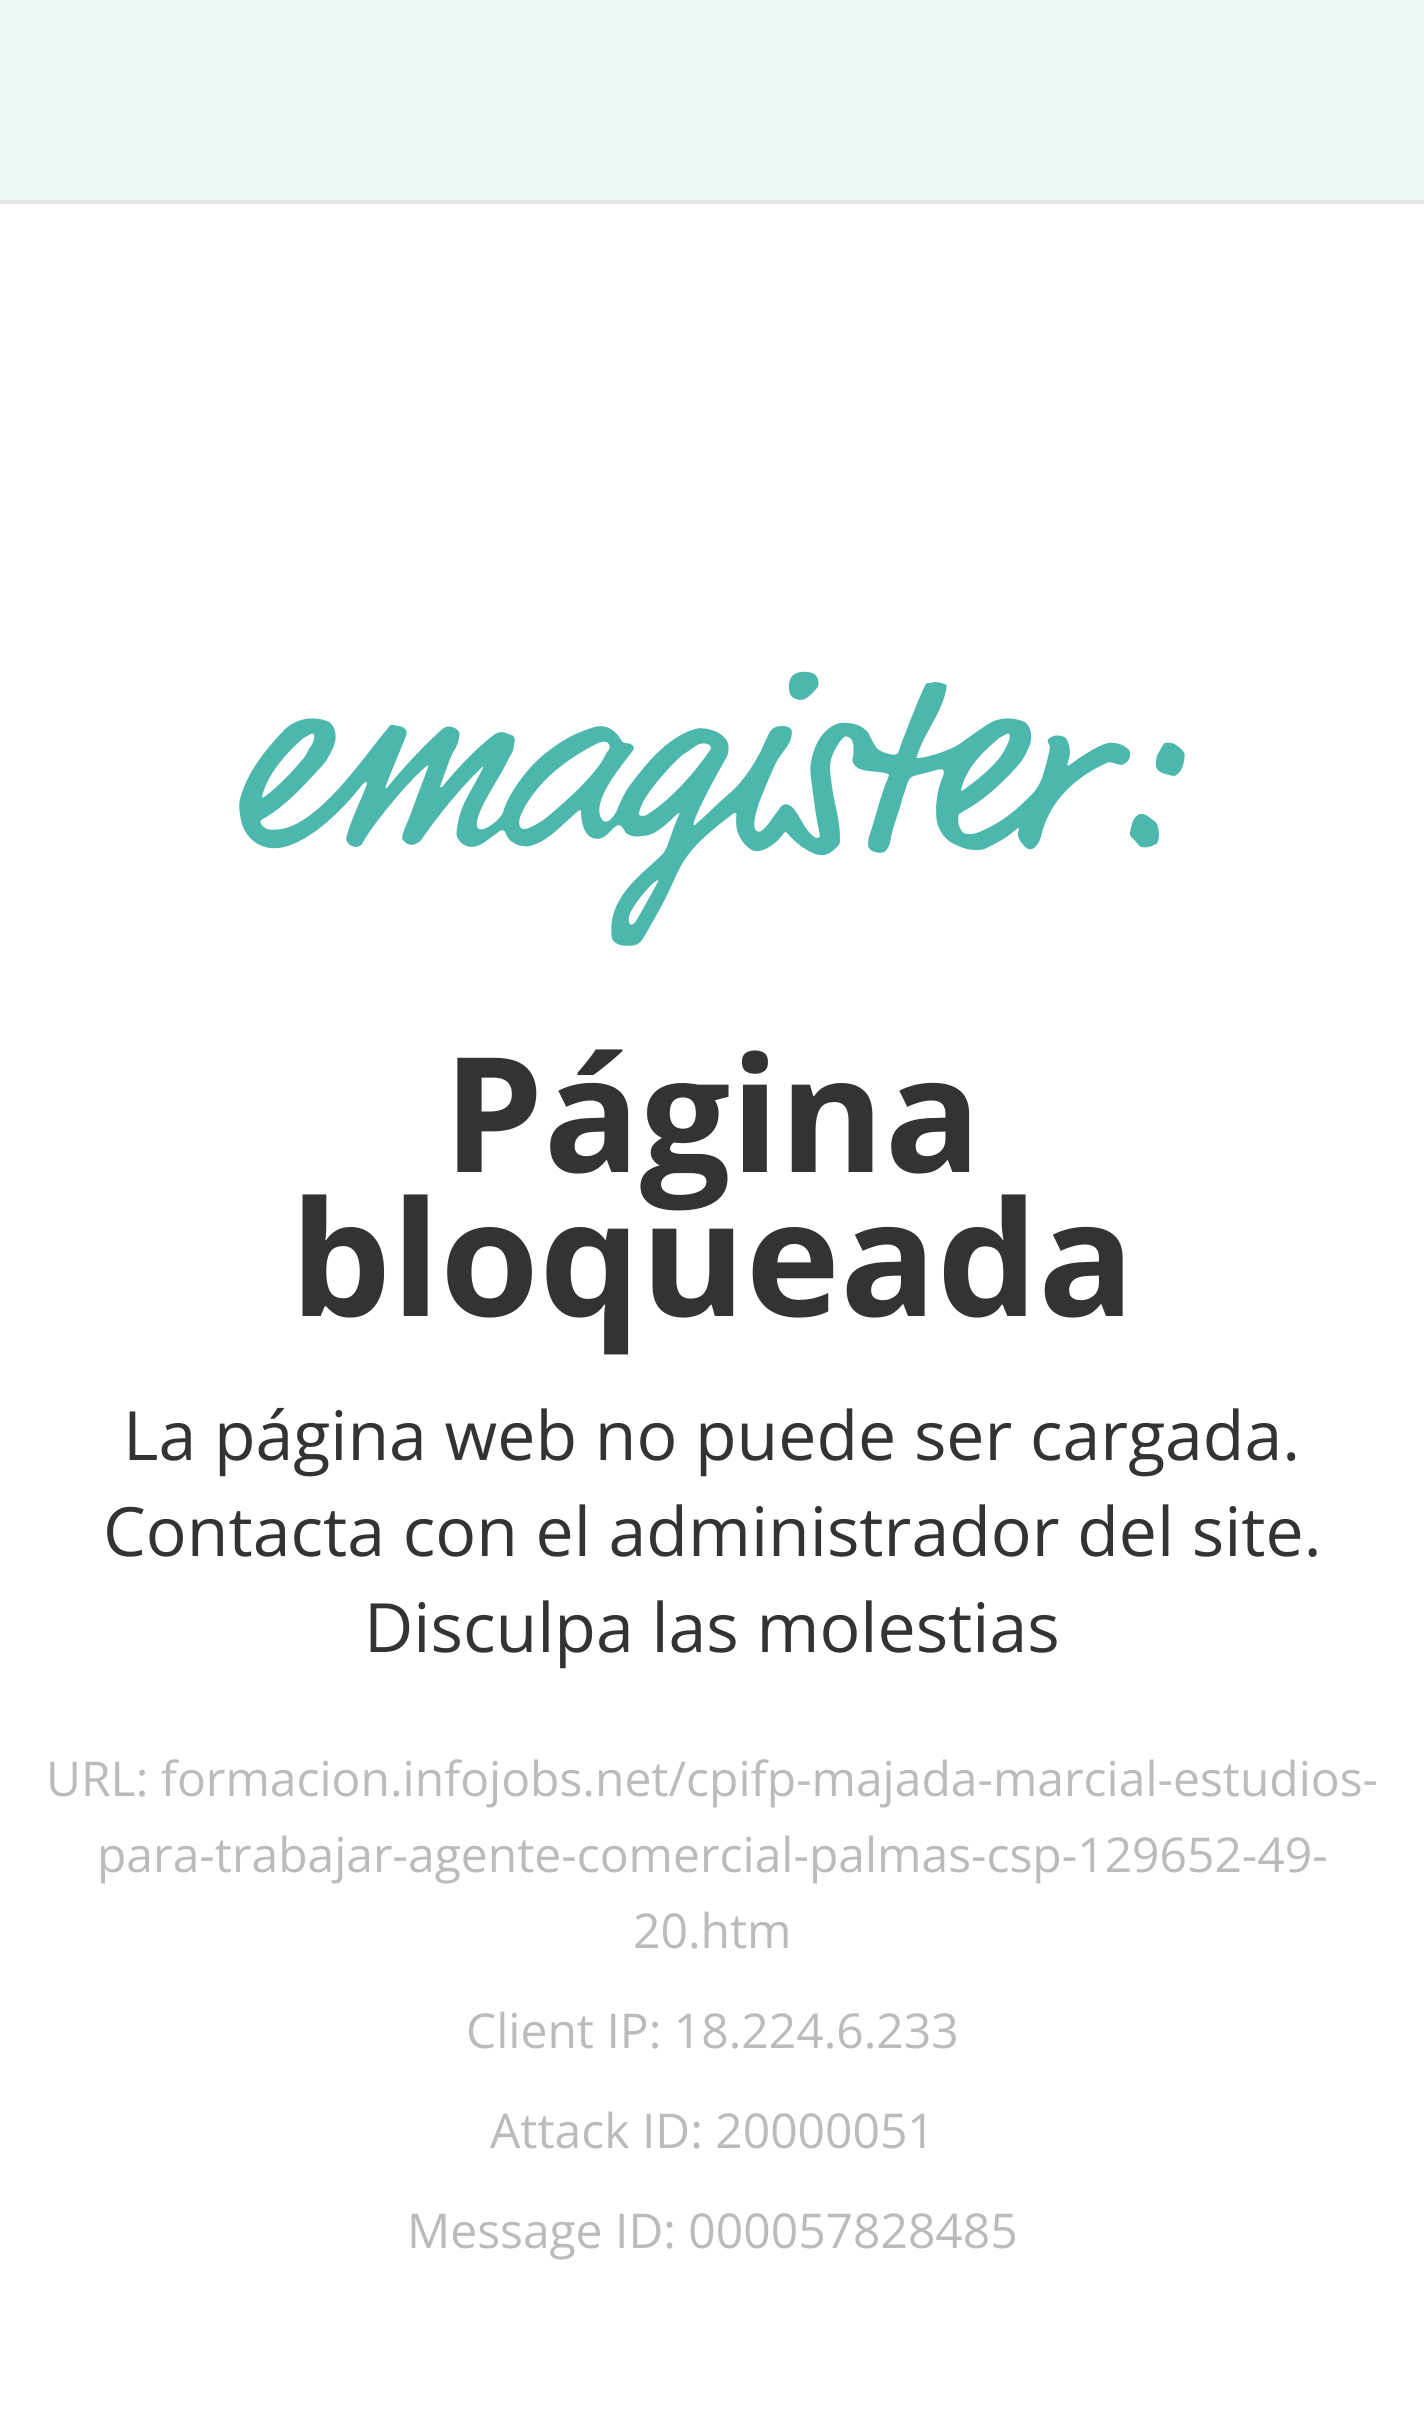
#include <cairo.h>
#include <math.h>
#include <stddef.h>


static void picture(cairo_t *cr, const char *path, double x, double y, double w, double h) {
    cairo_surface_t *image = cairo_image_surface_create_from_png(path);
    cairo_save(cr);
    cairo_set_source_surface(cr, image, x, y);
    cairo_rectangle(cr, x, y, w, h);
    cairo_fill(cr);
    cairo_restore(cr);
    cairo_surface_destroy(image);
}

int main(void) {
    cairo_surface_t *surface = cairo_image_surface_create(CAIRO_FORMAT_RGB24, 1424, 2415);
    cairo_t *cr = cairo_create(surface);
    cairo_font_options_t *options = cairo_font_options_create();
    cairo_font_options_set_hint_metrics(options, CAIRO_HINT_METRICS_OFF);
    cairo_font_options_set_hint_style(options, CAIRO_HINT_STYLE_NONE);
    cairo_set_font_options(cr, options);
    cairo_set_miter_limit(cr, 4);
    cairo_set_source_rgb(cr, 1, 1, 1);
    cairo_paint(cr);
    cairo_set_source_rgb(cr, 0.918, 0.969, 0.961);
    cairo_rectangle(cr, 0, 0, 1424, 200);
    cairo_fill(cr);
    cairo_set_source_rgb(cr, 0.898, 0.898, 0.898);
    cairo_rectangle(cr, 0, 200, 1424, 4);
    cairo_fill(cr);
    picture(cr, "img1.png", 239, 671, 946, 275);
    cairo_select_font_face(cr, "Open Sans", CAIRO_FONT_SLANT_NORMAL, CAIRO_FONT_WEIGHT_BOLD);
    cairo_set_font_size(cr, 160);
    cairo_set_source_rgb(cr, 0.2, 0.2, 0.2);
    cairo_move_to(cr, 443, 1172);
    cairo_show_text(cr, "Página");
    cairo_move_to(cr, 290, 1316);
    cairo_show_text(cr, "bloqueada");
    cairo_select_font_face(cr, "Open Sans", CAIRO_FONT_SLANT_NORMAL, CAIRO_FONT_WEIGHT_NORMAL);
    cairo_set_font_size(cr, 68);
    cairo_move_to(cr, 123, 1460);
    cairo_show_text(cr, "La página web no puede ser cargada.");
    cairo_move_to(cr, 103, 1556);
    cairo_show_text(cr, "Contacta con el administrador del site.");
    cairo_move_to(cr, 364, 1652);
    cairo_show_text(cr, "Disculpa las molestias");
    cairo_set_font_size(cr, 48);
    cairo_set_source_rgb(cr, 0.733, 0.733, 0.733);
    cairo_move_to(cr, 46, 1796);
    cairo_show_text(cr, "URL: formacion.infojobs.net/cpifp-majada-marcial-estudios-");
    cairo_move_to(cr, 97, 1872);
    cairo_show_text(cr, "para-trabajar-agente-comercial-palmas-csp-129652-49-");
    cairo_move_to(cr, 633, 1948);
    cairo_show_text(cr, "20.htm");
    cairo_move_to(cr, 466, 2048);
    cairo_show_text(cr, "Client IP: 18.224.6.233");
    cairo_move_to(cr, 490, 2148);
    cairo_show_text(cr, "Attack ID: 20000051");
    cairo_move_to(cr, 407, 2248);
    cairo_show_text(cr, "Message ID: 000057828485");
    cairo_surface_write_to_png(surface, "page.png");
    cairo_font_options_destroy(options);
    cairo_destroy(cr);
    cairo_surface_destroy(surface);
    return 0;
}
